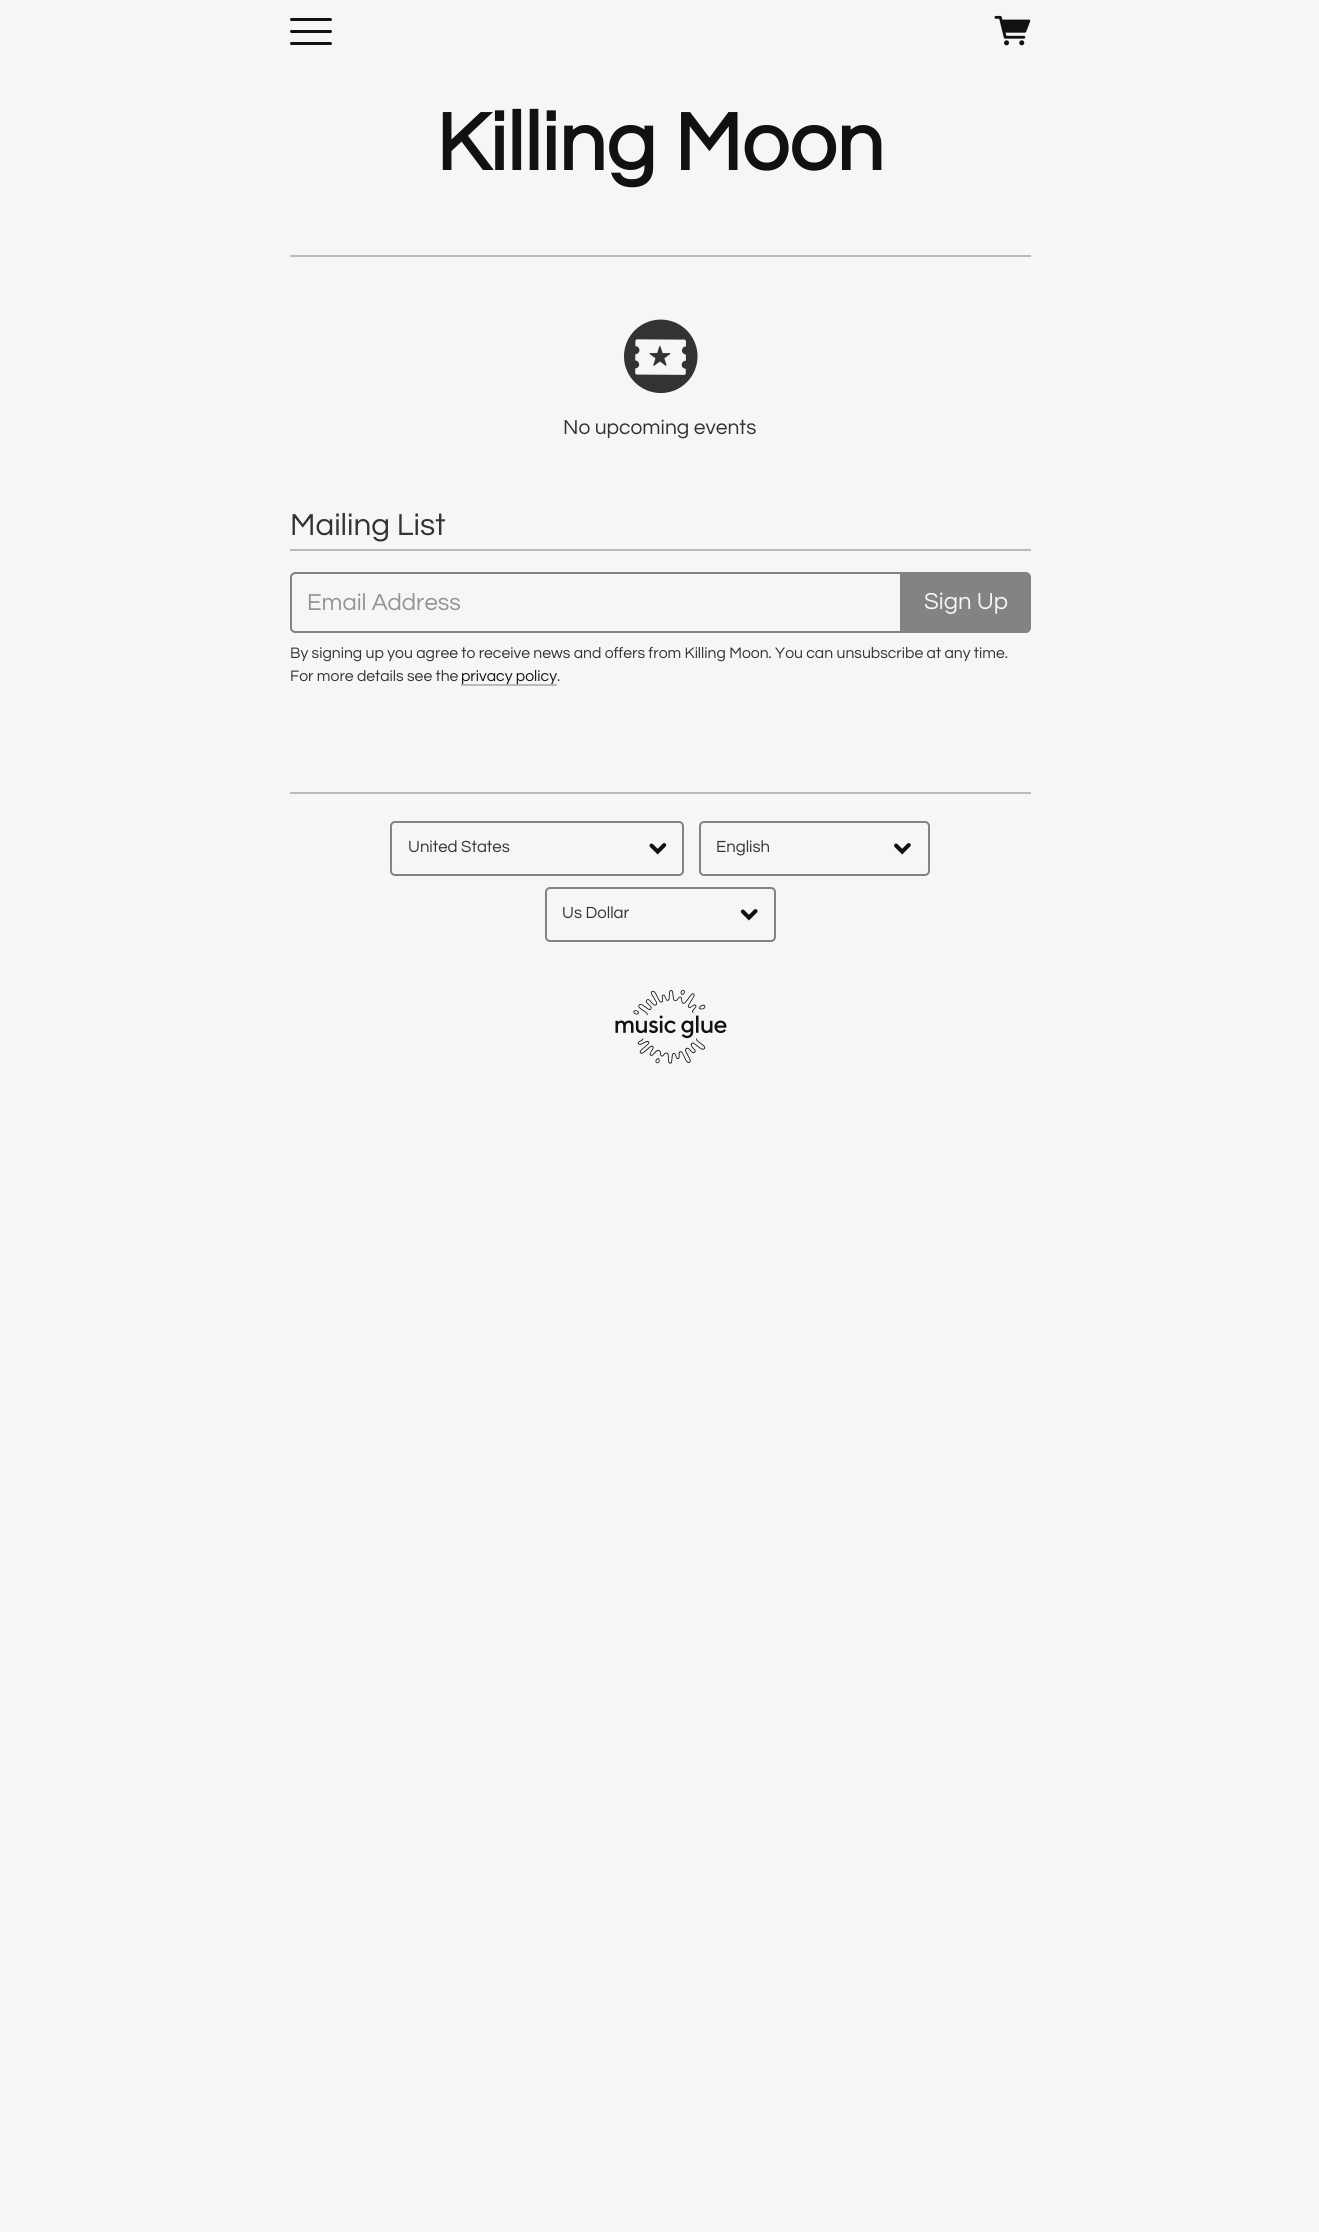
#include <cairo.h>
#include <math.h>
#include <stddef.h>


static void round_rect(cairo_t *cr, double x, double y, double w, double h, double r) {
    cairo_new_sub_path(cr);
    cairo_arc(cr, x + w - r, y + h - r, r, 0, M_PI / 2);
    cairo_arc(cr, x + r, y + h - r, r, M_PI / 2, M_PI);
    cairo_arc(cr, x + r, y + r, r, M_PI, 1.5 * M_PI);
    cairo_arc(cr, x + w - r, y + r, r, 1.5 * M_PI, 2 * M_PI);
    cairo_close_path(cr);
}

static void picture(cairo_t *cr, const char *path, double x, double y, double w, double h) {
    cairo_surface_t *image = cairo_image_surface_create_from_png(path);
    cairo_save(cr);
    cairo_set_source_surface(cr, image, x, y);
    cairo_rectangle(cr, x, y, w, h);
    cairo_fill(cr);
    cairo_restore(cr);
    cairo_surface_destroy(image);
}

int main(void) {
    cairo_surface_t *surface = cairo_image_surface_create(CAIRO_FORMAT_RGB24, 1319, 2232);
    cairo_t *cr = cairo_create(surface);
    cairo_font_options_t *options = cairo_font_options_create();
    cairo_font_options_set_hint_metrics(options, CAIRO_HINT_METRICS_OFF);
    cairo_font_options_set_hint_style(options, CAIRO_HINT_STYLE_NONE);
    cairo_set_font_options(cr, options);
    cairo_set_miter_limit(cr, 4);
    cairo_set_source_rgb(cr, 0.961, 0.961, 0.961);
    cairo_paint(cr);
    cairo_set_source_rgb(cr, 0.067, 0.067, 0.067);
    round_rect(cr, 290, 18, 42, 3, 1.5);
    cairo_fill(cr);
    round_rect(cr, 290, 30, 42, 3, 1.5);
    cairo_fill(cr);
    round_rect(cr, 290, 42, 42, 3, 1.5);
    cairo_fill(cr);
    picture(cr, "img1.png", 994, 15, 37, 31);
    cairo_select_font_face(cr, "Questrial", CAIRO_FONT_SLANT_NORMAL, CAIRO_FONT_WEIGHT_BOLD);
    cairo_set_font_size(cr, 84);
    cairo_move_to(cr, 436, 170);
    cairo_show_text(cr, "Killing Moon");
    cairo_set_source_rgb(cr, 0.733, 0.733, 0.733);
    cairo_rectangle(cr, 290, 255, 741, 2);
    cairo_fill(cr);
    picture(cr, "img2.png", 623, 319, 75, 75);
    cairo_select_font_face(cr, "Questrial", CAIRO_FONT_SLANT_NORMAL, CAIRO_FONT_WEIGHT_NORMAL);
    cairo_set_font_size(cr, 21);
    cairo_set_source_rgb(cr, 0.2, 0.2, 0.2);
    cairo_move_to(cr, 563, 434);
    cairo_show_text(cr, "No upcoming events");
    cairo_set_source_rgb(cr, 0.733, 0.733, 0.733);
    cairo_rectangle(cr, 290, 549, 741, 2);
    cairo_fill(cr);
    cairo_set_font_size(cr, 31.5);
    cairo_set_source_rgb(cr, 0.2, 0.2, 0.2);
    cairo_move_to(cr, 290, 535);
    cairo_show_text(cr, "Mailing List");
    cairo_new_path(cr);
    cairo_move_to(cr, 295, 573);
    cairo_line_to(cr, 901, 573);
    cairo_line_to(cr, 901, 632);
    cairo_line_to(cr, 295, 632);
    cairo_curve_to(cr, 293, 632, 291, 630, 291, 628);
    cairo_line_to(cr, 291, 577);
    cairo_curve_to(cr, 291, 575, 293, 573, 295, 573);
    cairo_close_path(cr);
    cairo_set_source_rgb(cr, 0.514, 0.514, 0.514);
    cairo_stroke(cr);
    cairo_set_font_size(cr, 24);
    cairo_set_source_rgb(cr, 0.58, 0.58, 0.58);
    cairo_move_to(cr, 307, 610);
    cairo_show_text(cr, "Email Address");
    cairo_set_source_rgb(cr, 0.514, 0.514, 0.514);
    cairo_new_path(cr);
    cairo_move_to(cr, 903, 573);
    cairo_line_to(cr, 1026, 573);
    cairo_curve_to(cr, 1028, 573, 1030, 575, 1030, 577);
    cairo_line_to(cr, 1030, 628);
    cairo_curve_to(cr, 1030, 630, 1028, 632, 1026, 632);
    cairo_line_to(cr, 903, 632);
    cairo_close_path(cr);
    cairo_fill_preserve(cr);
    cairo_stroke(cr);
    cairo_set_source_rgb(cr, 0.961, 0.961, 0.961);
    cairo_move_to(cr, 924, 609);
    cairo_show_text(cr, "Sign Up");
    cairo_set_font_size(cr, 15.75);
    cairo_set_source_rgb(cr, 0.2, 0.2, 0.2);
    cairo_move_to(cr, 290, 658);
    cairo_show_text(cr, "By signing up you agree to receive news and offers from Killing Moon. You can unsubscribe at any time.");
    cairo_move_to(cr, 290, 681);
    cairo_show_text(cr, "For more details see the");
    cairo_set_source_rgb(cr, 0.733, 0.733, 0.733);
    cairo_rectangle(cr, 461, 684, 96, 2);
    cairo_fill(cr);
    cairo_set_source_rgb(cr, 0.067, 0.067, 0.067);
    cairo_move_to(cr, 461, 681);
    cairo_show_text(cr, "privacy policy");
    cairo_set_source_rgb(cr, 0.2, 0.2, 0.2);
    cairo_move_to(cr, 557, 681);
    cairo_show_text(cr, ".");
    cairo_set_source_rgb(cr, 0.733, 0.733, 0.733);
    cairo_rectangle(cr, 290, 792, 741, 2);
    cairo_fill(cr);
    round_rect(cr, 391, 822, 292, 53, 4);
    cairo_set_source_rgb(cr, 0.514, 0.514, 0.514);
    cairo_stroke(cr);
    cairo_set_font_size(cr, 16.75);
    cairo_set_source_rgb(cr, 0.2, 0.2, 0.2);
    cairo_move_to(cr, 408, 852);
    cairo_show_text(cr, "United States");
    picture(cr, "img3.png", 649, 843, 18, 12);
    round_rect(cr, 700, 822, 229, 53, 4);
    cairo_set_source_rgb(cr, 0.514, 0.514, 0.514);
    cairo_stroke(cr);
    cairo_set_source_rgb(cr, 0.2, 0.2, 0.2);
    cairo_move_to(cr, 716, 852);
    cairo_show_text(cr, "English");
    picture(cr, "img4.png", 894, 843, 17, 12);
    round_rect(cr, 546, 888, 229, 53, 4);
    cairo_set_source_rgb(cr, 0.514, 0.514, 0.514);
    cairo_stroke(cr);
    cairo_set_source_rgb(cr, 0.2, 0.2, 0.2);
    cairo_move_to(cr, 562, 918);
    cairo_show_text(cr, "Us Dollar");
    picture(cr, "img5.png", 740, 909, 18, 12);
    picture(cr, "img6.png", 615, 990, 112, 74);
    cairo_surface_write_to_png(surface, "page.png");
    cairo_font_options_destroy(options);
    cairo_destroy(cr);
    cairo_surface_destroy(surface);
    return 0;
}
